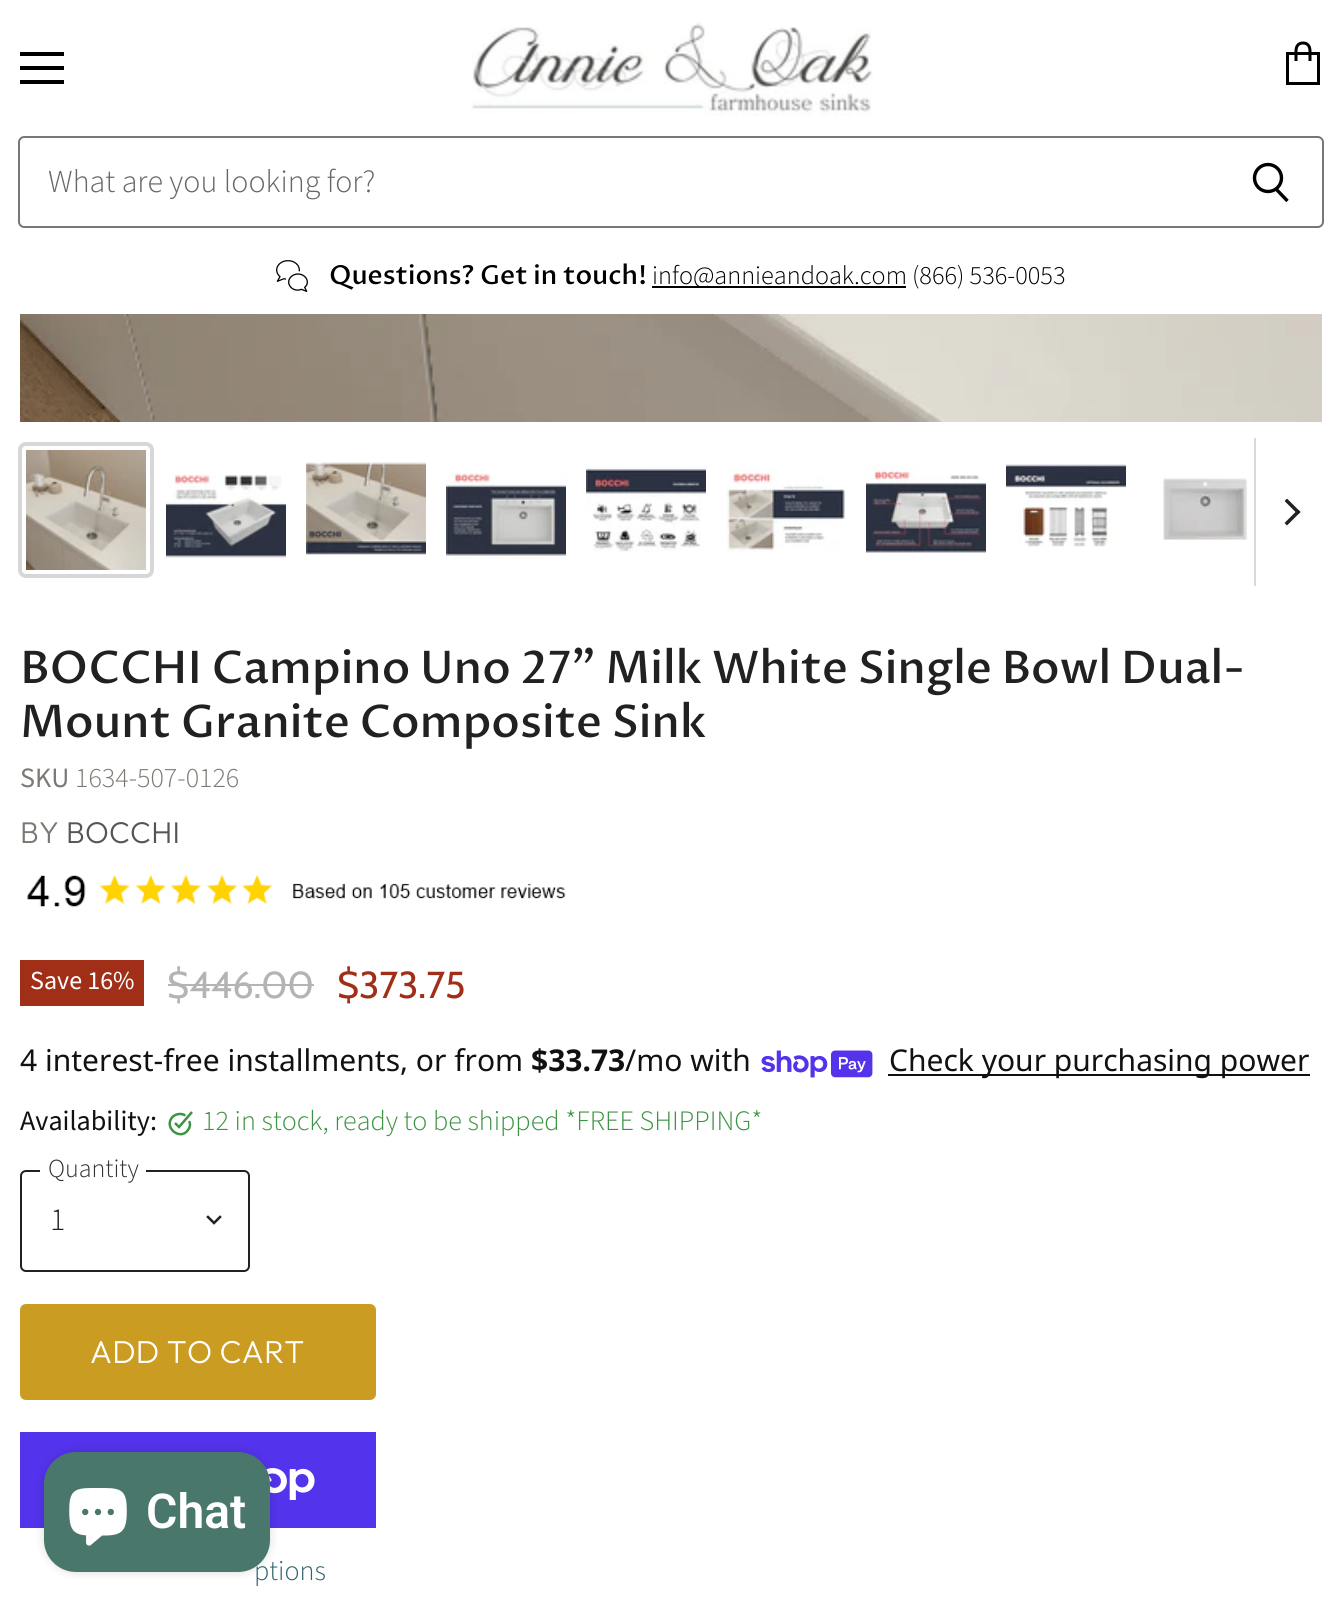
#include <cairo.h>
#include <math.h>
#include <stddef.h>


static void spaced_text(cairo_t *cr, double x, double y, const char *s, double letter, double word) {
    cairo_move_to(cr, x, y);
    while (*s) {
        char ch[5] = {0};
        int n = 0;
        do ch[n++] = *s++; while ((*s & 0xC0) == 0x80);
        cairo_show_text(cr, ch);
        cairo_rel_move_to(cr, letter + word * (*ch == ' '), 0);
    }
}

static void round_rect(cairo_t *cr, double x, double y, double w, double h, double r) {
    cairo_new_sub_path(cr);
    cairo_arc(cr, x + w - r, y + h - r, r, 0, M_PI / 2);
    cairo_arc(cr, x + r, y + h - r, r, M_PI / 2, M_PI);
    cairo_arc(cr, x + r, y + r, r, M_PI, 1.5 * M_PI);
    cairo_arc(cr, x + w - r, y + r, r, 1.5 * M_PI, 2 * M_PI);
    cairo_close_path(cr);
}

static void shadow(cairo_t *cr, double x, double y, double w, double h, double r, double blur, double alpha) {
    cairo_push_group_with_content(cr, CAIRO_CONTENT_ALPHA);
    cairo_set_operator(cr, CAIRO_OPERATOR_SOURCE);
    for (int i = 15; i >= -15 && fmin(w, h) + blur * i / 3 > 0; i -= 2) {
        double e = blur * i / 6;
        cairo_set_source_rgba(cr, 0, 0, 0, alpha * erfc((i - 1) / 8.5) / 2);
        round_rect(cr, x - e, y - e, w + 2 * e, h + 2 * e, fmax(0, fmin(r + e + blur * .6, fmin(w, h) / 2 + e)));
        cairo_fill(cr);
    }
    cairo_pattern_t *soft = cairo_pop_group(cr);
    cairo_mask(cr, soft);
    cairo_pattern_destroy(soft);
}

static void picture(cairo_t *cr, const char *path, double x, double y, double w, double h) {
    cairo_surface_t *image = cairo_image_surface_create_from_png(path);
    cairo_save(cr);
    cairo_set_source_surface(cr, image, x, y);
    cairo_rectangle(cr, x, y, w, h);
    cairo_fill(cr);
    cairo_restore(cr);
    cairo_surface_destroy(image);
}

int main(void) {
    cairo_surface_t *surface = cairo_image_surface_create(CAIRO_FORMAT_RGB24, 1342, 1613);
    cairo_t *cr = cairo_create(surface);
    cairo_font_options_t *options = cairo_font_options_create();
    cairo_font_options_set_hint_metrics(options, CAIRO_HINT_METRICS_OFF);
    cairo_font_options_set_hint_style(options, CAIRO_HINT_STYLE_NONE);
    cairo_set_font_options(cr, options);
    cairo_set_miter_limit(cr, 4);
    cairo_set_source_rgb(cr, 1, 1, 1);
    cairo_paint(cr);
    cairo_set_source_rgb(cr, 0, 0, 0);
    cairo_rectangle(cr, 20, 52, 44, 4);
    cairo_fill(cr);
    cairo_rectangle(cr, 20, 66, 44, 4);
    cairo_fill(cr);
    cairo_rectangle(cr, 20, 80, 44, 4);
    cairo_fill(cr);
    cairo_new_path(cr);
    cairo_move_to(cr, 1287.5, 53.5);
    cairo_line_to(cr, 1318.5, 53.5);
    cairo_line_to(cr, 1318.5, 83.5);
    cairo_line_to(cr, 1287.5, 83.5);
    cairo_close_path(cr);
    cairo_move_to(cr, 1310, 61);
    cairo_line_to(cr, 1310, 51);
    cairo_curve_to(cr, 1310, 45.5, 1307, 43, 1303, 43);
    cairo_curve_to(cr, 1299, 43, 1296, 45.5, 1296, 51);
    cairo_line_to(cr, 1296, 61);
    cairo_set_line_width(cr, 3);
    cairo_stroke(cr);
    picture(cr, "img1.png", 471, 22, 402, 94);
    cairo_set_source_rgb(cr, 0.467, 0.467, 0.467);
    cairo_set_fill_rule(cr, CAIRO_FILL_RULE_EVEN_ODD);
    cairo_new_path(cr);
    cairo_move_to(cr, 24, 136);
    cairo_line_to(cr, 1218, 136);
    cairo_line_to(cr, 1218, 228);
    cairo_line_to(cr, 24, 228);
    cairo_curve_to(cr, 21, 228, 18, 225, 18, 222);
    cairo_line_to(cr, 18, 142);
    cairo_curve_to(cr, 18, 139, 21, 136, 24, 136);
    cairo_close_path(cr);
    cairo_move_to(cr, 24, 138);
    cairo_line_to(cr, 1218, 138);
    cairo_line_to(cr, 1218, 226);
    cairo_line_to(cr, 24, 226);
    cairo_curve_to(cr, 22, 226, 20, 224, 20, 222);
    cairo_line_to(cr, 20, 142);
    cairo_curve_to(cr, 20, 140, 22, 138, 24, 138);
    cairo_close_path(cr);
    cairo_fill(cr);
    cairo_select_font_face(cr, "Source Sans Pro Light", CAIRO_FONT_SLANT_NORMAL, CAIRO_FONT_WEIGHT_NORMAL);
    cairo_set_font_size(cr, 32);
    cairo_set_source_rgb(cr, 0.4, 0.4, 0.4);
    cairo_move_to(cr, 48, 192);
    cairo_show_text(cr, "What are you looking for?");
    cairo_set_source_rgb(cr, 0.467, 0.467, 0.467);
    cairo_new_path(cr);
    cairo_move_to(cr, 1218, 136);
    cairo_line_to(cr, 1318, 136);
    cairo_curve_to(cr, 1321, 136, 1324, 139, 1324, 142);
    cairo_line_to(cr, 1324, 222);
    cairo_curve_to(cr, 1324, 225, 1321, 228, 1318, 228);
    cairo_line_to(cr, 1218, 228);
    cairo_close_path(cr);
    cairo_move_to(cr, 1218, 138);
    cairo_line_to(cr, 1318, 138);
    cairo_curve_to(cr, 1320, 138, 1322, 140, 1322, 142);
    cairo_line_to(cr, 1322, 222);
    cairo_curve_to(cr, 1322, 224, 1320, 226, 1318, 226);
    cairo_line_to(cr, 1218, 226);
    cairo_close_path(cr);
    cairo_fill(cr);
    cairo_new_path(cr);
    cairo_move_to(cr, 1287.5, 201);
    cairo_line_to(cr, 1276, 189);
    cairo_set_source_rgb(cr, 0, 0, 0);
    cairo_set_line_width(cr, 3.4);
    cairo_stroke(cr);
    cairo_arc(cr, 1268, 178, 13.5, 0, 2 * M_PI);
    cairo_stroke(cr);
    picture(cr, "img2.png", 276, 260, 32, 32);
    cairo_select_font_face(cr, "Proza Libre Medium", CAIRO_FONT_SLANT_NORMAL, CAIRO_FONT_WEIGHT_NORMAL);
    cairo_set_font_size(cr, 26.25);
    cairo_move_to(cr, 329, 284);
    cairo_show_text(cr, "Questions? Get in touch!");
    cairo_rectangle(cr, 652, 286, 254, 2);
    cairo_fill(cr);
    cairo_select_font_face(cr, "Source Sans Pro Light", CAIRO_FONT_SLANT_NORMAL, CAIRO_FONT_WEIGHT_NORMAL);
    cairo_move_to(cr, 652, 284);
    cairo_show_text(cr, "info@annieandoak.com");
    cairo_move_to(cr, 912, 284);
    cairo_show_text(cr, "(866) 536-0053");
    picture(cr, "img3.png", 20, 314, 1302, 108);
    round_rect(cr, 20, 444, 132, 132, 6);
    cairo_set_source_rgb(cr, 0.843, 0.843, 0.843);
    cairo_set_line_width(cr, 4);
    cairo_stroke(cr);
    picture(cr, "img4.png", 26, 450, 120, 120);
    picture(cr, "img5.png", 166, 474, 120, 84);
    picture(cr, "img6.png", 306, 461, 120, 94);
    picture(cr, "img7.png", 446, 471, 120, 88);
    picture(cr, "img8.png", 586, 466, 120, 86);
    picture(cr, "img9.png", 726, 469, 119, 83);
    picture(cr, "img10.png", 866, 463, 120, 90);
    picture(cr, "img11.png", 1006, 464, 120, 83);
    picture(cr, "img12.png", 1163, 477, 85, 63);
    cairo_set_source_rgb(cr, 0.851, 0.851, 0.851);
    cairo_rectangle(cr, 1254, 438, 2, 148);
    cairo_fill(cr);
    cairo_save(cr);
    cairo_set_fill_rule(cr, CAIRO_FILL_RULE_WINDING);
    cairo_new_path(cr);
    cairo_move_to(cr, 1285, 527);
    cairo_line_to(cr, 1285, 499);
    cairo_line_to(cr, 1301, 499);
    cairo_line_to(cr, 1301, 527);
    cairo_close_path(cr);
    cairo_clip(cr);
    cairo_new_path(cr);
    cairo_move_to(cr, 1298, 512);
    cairo_line_to(cr, 1287, 501);
    cairo_set_source_rgb(cr, 0.129, 0.129, 0.129);
    cairo_set_line_width(cr, 3.5);
    cairo_set_line_cap(cr, CAIRO_LINE_CAP_SQUARE);
    cairo_stroke(cr);
    cairo_restore(cr);
    cairo_new_path(cr);
    cairo_move_to(cr, 1298, 512);
    cairo_line_to(cr, 1287, 523);
    cairo_set_source_rgb(cr, 0.129, 0.129, 0.129);
    cairo_set_line_width(cr, 3.5);
    cairo_set_line_cap(cr, CAIRO_LINE_CAP_SQUARE);
    cairo_stroke(cr);
    cairo_select_font_face(cr, "Proza Libre Medium", CAIRO_FONT_SLANT_NORMAL, CAIRO_FONT_WEIGHT_NORMAL);
    cairo_set_font_size(cr, 45);
    cairo_move_to(cr, 20, 683);
    cairo_show_text(cr, "BOCCHI Campino Uno 27\" Milk White Single Bowl Dual-");
    cairo_move_to(cr, 20, 737);
    cairo_show_text(cr, "Mount Granite Composite Sink");
    cairo_select_font_face(cr, "Source Sans Pro", CAIRO_FONT_SLANT_NORMAL, CAIRO_FONT_WEIGHT_NORMAL);
    cairo_set_font_size(cr, 28);
    cairo_set_source_rgb(cr, 0.486, 0.471, 0.451);
    cairo_move_to(cr, 20, 787);
    cairo_show_text(cr, "SKU");
    cairo_select_font_face(cr, "Source Sans Pro Light", CAIRO_FONT_SLANT_NORMAL, CAIRO_FONT_WEIGHT_NORMAL);
    cairo_move_to(cr, 75, 787);
    cairo_show_text(cr, "1634-507-0126");
    cairo_select_font_face(cr, "Outfit Light", CAIRO_FONT_SLANT_NORMAL, CAIRO_FONT_WEIGHT_NORMAL);
    cairo_set_font_size(cr, 30);
    spaced_text(cr, 20, 843, "BY", 0.25, 0);
    cairo_set_source_rgb(cr, 0.333, 0.333, 0.333);
    spaced_text(cr, 66, 843, "BOCCHI", 0.25, 0);
    picture(cr, "img13.png", 26, 874, 540, 33);
    cairo_select_font_face(cr, "Cabin", CAIRO_FONT_SLANT_NORMAL, CAIRO_FONT_WEIGHT_NORMAL);
    cairo_set_font_size(cr, 37.5);
    cairo_set_source_rgb(cr, 0.706, 0.706, 0.706);
    cairo_move_to(cr, 167, 998);
    cairo_show_text(cr, "$446.00");
    cairo_rectangle(cr, 168, 984, 146, 2);
    cairo_fill(cr);
    cairo_set_source_rgb(cr, 0.631, 0.184, 0.094);
    cairo_move_to(cr, 337, 998);
    cairo_show_text(cr, "$373.75");
    cairo_select_font_face(cr, "Noto Sans", CAIRO_FONT_SLANT_NORMAL, CAIRO_FONT_WEIGHT_NORMAL);
    cairo_set_font_size(cr, 30);
    cairo_set_source_rgb(cr, 0.067, 0.067, 0.067);
    cairo_move_to(cr, 20, 1071);
    cairo_show_text(cr, "4 interest-free installments, or from");
    cairo_select_font_face(cr, "Noto Sans", CAIRO_FONT_SLANT_NORMAL, CAIRO_FONT_WEIGHT_BOLD);
    cairo_move_to(cr, 531, 1071);
    cairo_show_text(cr, "$33.73");
    cairo_select_font_face(cr, "Noto Sans", CAIRO_FONT_SLANT_NORMAL, CAIRO_FONT_WEIGHT_NORMAL);
    cairo_move_to(cr, 625, 1071);
    cairo_show_text(cr, "/mo with");
    picture(cr, "img14.png", 761, 1050, 112, 28);
    cairo_rectangle(cr, 888, 1074, 422, 2);
    cairo_fill(cr);
    cairo_move_to(cr, 889, 1071);
    cairo_show_text(cr, "Check your purchasing power");
    cairo_set_source_rgb(cr, 0.631, 0.184, 0.094);
    cairo_rectangle(cr, 20, 960, 124, 46);
    cairo_fill(cr);
    cairo_select_font_face(cr, "Source Sans Pro", CAIRO_FONT_SLANT_NORMAL, CAIRO_FONT_WEIGHT_NORMAL);
    cairo_set_font_size(cr, 26);
    cairo_set_source_rgb(cr, 1, 1, 1);
    cairo_move_to(cr, 30, 989);
    cairo_show_text(cr, "Save 16%");
    cairo_set_font_size(cr, 28.1);
    cairo_set_source_rgb(cr, 0.067, 0.067, 0.067);
    cairo_move_to(cr, 20, 1130);
    cairo_show_text(cr, "Availability:");
    cairo_new_path(cr);
    cairo_move_to(cr, 175, 1123);
    cairo_line_to(cr, 179, 1127);
    cairo_line_to(cr, 192, 1112);
    cairo_set_source_rgb(cr, 0.235, 0.576, 0.259);
    cairo_set_line_width(cr, 2.5);
    cairo_set_line_cap(cr, CAIRO_LINE_CAP_BUTT);
    cairo_stroke(cr);
    cairo_new_path(cr);
    cairo_move_to(cr, 189.5, 1122);
    cairo_curve_to(cr, 190.5, 1124.5, 190, 1127.5, 188, 1130);
    cairo_curve_to(cr, 180.5, 1141, 163.5, 1128, 172, 1117.5);
    cairo_curve_to(cr, 175, 1114, 180.5, 1113, 184.5, 1115);
    cairo_set_line_cap(cr, CAIRO_LINE_CAP_ROUND);
    cairo_set_line_join(cr, CAIRO_LINE_JOIN_ROUND);
    cairo_stroke(cr);
    cairo_select_font_face(cr, "Source Sans Pro Light", CAIRO_FONT_SLANT_NORMAL, CAIRO_FONT_WEIGHT_NORMAL);
    cairo_move_to(cr, 202, 1130);
    cairo_show_text(cr, "12 in stock, ready to be shipped *FREE SHIPPING*");
    round_rect(cr, 21, 1171, 228, 100, 5);
    cairo_set_source_rgb(cr, 0.129, 0.129, 0.129);
    cairo_set_line_width(cr, 2);
    cairo_set_line_cap(cr, CAIRO_LINE_CAP_BUTT);
    cairo_set_line_join(cr, CAIRO_LINE_JOIN_MITER);
    cairo_stroke(cr);
    cairo_set_source_rgb(cr, 1, 1, 1);
    round_rect(cr, 40, 1156, 106, 30, 6);
    cairo_fill(cr);
    cairo_set_font_size(cr, 26);
    cairo_set_source_rgb(cr, 0.2, 0.2, 0.2);
    cairo_move_to(cr, 48, 1177);
    cairo_show_text(cr, "Quantity");
    cairo_set_font_size(cr, 32);
    cairo_set_source_rgb(cr, 0.129, 0.129, 0.129);
    cairo_move_to(cr, 50, 1230);
    cairo_show_text(cr, "1");
    cairo_new_path(cr);
    cairo_move_to(cr, 214, 1223);
    cairo_line_to(cr, 220, 1217);
    cairo_move_to(cr, 214, 1223);
    cairo_line_to(cr, 208, 1217);
    cairo_set_line_width(cr, 2.5);
    cairo_set_line_cap(cr, CAIRO_LINE_CAP_SQUARE);
    cairo_stroke(cr);
    cairo_set_source_rgb(cr, 0.796, 0.612, 0.133);
    round_rect(cr, 21, 1305, 354, 94, 5);
    cairo_fill_preserve(cr);
    cairo_set_line_width(cr, 2);
    cairo_set_line_cap(cr, CAIRO_LINE_CAP_BUTT);
    cairo_stroke(cr);
    cairo_select_font_face(cr, "Outfit Light", CAIRO_FONT_SLANT_NORMAL, CAIRO_FONT_WEIGHT_NORMAL);
    cairo_set_font_size(cr, 31.75);
    cairo_set_source_rgb(cr, 1, 1, 1);
    spaced_text(cr, 90, 1363, "ADD TO CART", 0.25, 0);
    cairo_set_source_rgb(cr, 0.329, 0.2, 0.922);
    cairo_rectangle(cr, 20, 1432, 356, 96);
    cairo_fill(cr);
    picture(cr, "img15.png", 266, 1468, 49, 32);
    cairo_select_font_face(cr, "Source Sans Pro Light", CAIRO_FONT_SLANT_NORMAL, CAIRO_FONT_WEIGHT_NORMAL);
    cairo_set_font_size(cr, 28.1);
    cairo_set_source_rgb(cr, 0.204, 0.396, 0.42);
    cairo_move_to(cr, 254, 1580);
    cairo_show_text(cr, "ptions");
    cairo_set_source_rgb(cr, 0, 0, 0);
    shadow(cr, 44, 1452, 226, 120, 32, 5, 0.15);
    cairo_set_source_rgb(cr, 0.286, 0.467, 0.42);
    round_rect(cr, 44, 1452, 226, 120, 32);
    cairo_fill(cr);
    picture(cr, "img16.png", 69, 1488, 58, 58);
    cairo_select_font_face(cr, "Roboto SemiBold", CAIRO_FONT_SLANT_NORMAL, CAIRO_FONT_WEIGHT_NORMAL);
    cairo_set_font_size(cr, 48);
    cairo_set_source_rgb(cr, 1, 1, 1);
    cairo_move_to(cr, 146, 1528);
    cairo_show_text(cr, "Chat");
    cairo_surface_write_to_png(surface, "page.png");
    cairo_font_options_destroy(options);
    cairo_destroy(cr);
    cairo_surface_destroy(surface);
    return 0;
}
